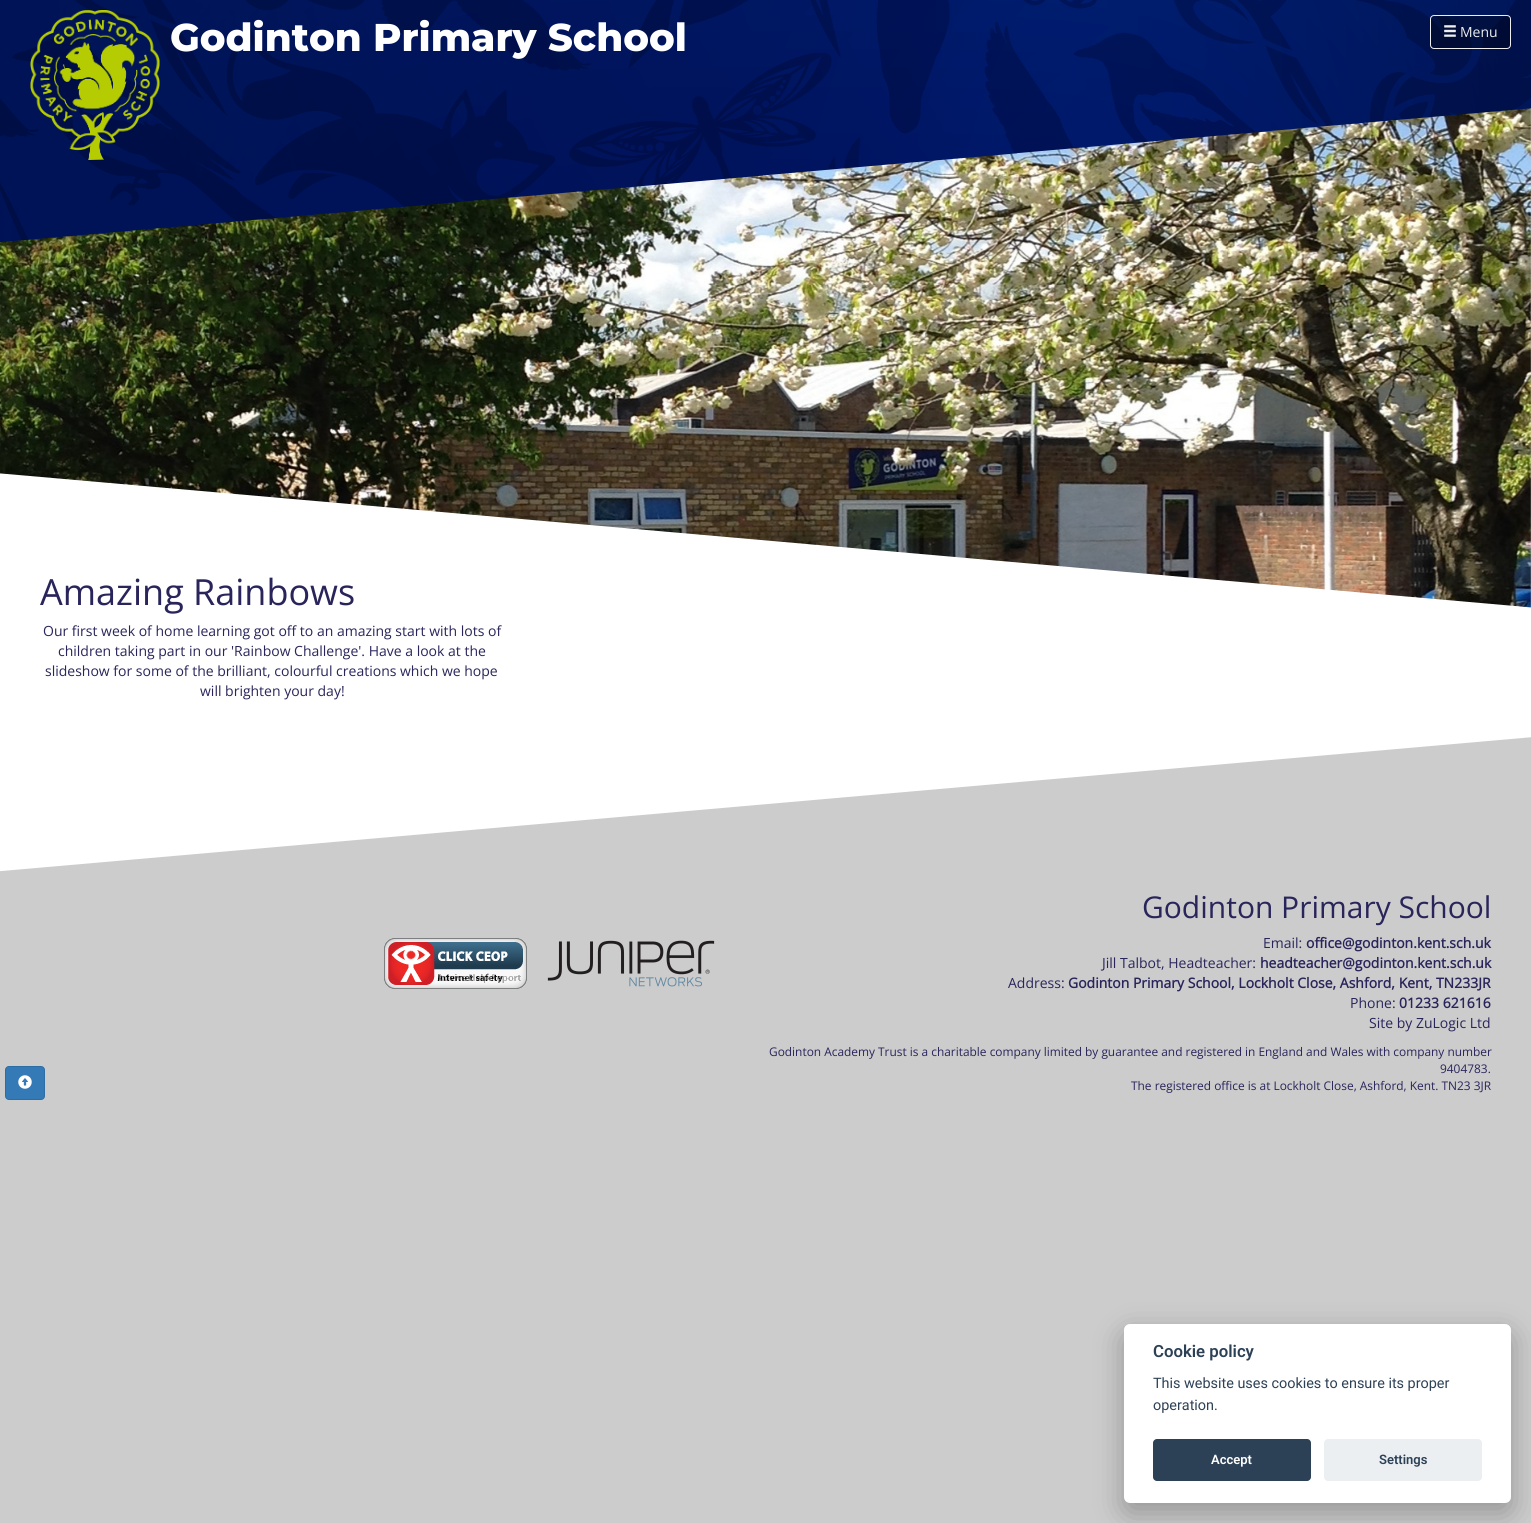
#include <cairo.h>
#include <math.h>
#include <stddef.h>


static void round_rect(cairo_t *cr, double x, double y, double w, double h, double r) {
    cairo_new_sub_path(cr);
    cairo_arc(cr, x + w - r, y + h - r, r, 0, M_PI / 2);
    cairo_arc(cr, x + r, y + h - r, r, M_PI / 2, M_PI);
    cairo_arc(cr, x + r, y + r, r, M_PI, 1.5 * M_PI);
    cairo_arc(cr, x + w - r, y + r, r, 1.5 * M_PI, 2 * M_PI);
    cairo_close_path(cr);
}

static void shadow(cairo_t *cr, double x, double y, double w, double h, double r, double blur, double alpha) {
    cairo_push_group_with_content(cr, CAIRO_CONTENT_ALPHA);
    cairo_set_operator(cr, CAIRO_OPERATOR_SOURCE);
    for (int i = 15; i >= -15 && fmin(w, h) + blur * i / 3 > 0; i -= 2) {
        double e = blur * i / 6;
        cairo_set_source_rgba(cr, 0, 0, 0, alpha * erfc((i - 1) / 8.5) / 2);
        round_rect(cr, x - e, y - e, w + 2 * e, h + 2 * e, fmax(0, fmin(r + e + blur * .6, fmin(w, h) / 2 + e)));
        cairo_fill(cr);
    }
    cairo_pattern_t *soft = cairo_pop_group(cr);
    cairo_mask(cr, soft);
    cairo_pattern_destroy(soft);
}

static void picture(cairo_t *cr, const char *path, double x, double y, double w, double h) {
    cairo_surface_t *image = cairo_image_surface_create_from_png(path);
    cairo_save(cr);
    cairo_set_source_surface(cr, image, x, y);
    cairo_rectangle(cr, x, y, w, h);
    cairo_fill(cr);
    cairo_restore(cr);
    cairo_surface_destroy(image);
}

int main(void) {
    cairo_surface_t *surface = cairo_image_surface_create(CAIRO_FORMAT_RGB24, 1531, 1523);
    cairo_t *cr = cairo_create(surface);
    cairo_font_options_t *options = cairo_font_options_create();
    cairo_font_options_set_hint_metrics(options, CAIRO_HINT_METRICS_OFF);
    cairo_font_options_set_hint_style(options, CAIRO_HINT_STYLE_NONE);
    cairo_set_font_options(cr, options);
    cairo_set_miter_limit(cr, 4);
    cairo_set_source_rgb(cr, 0.8, 0.8, 0.8);
    cairo_paint(cr);
    picture(cr, "img3.png", 0, 108, 1531, 500);
    picture(cr, "img1.png", 0, 0, 1531, 243);
    picture(cr, "img2.png", 30, 10, 130, 150);
    cairo_select_font_face(cr, "Montserrat ExtraBold", CAIRO_FONT_SLANT_NORMAL, CAIRO_FONT_WEIGHT_NORMAL);
    cairo_set_font_size(cr, 38.7);
    cairo_set_source_rgb(cr, 1, 1, 1);
    cairo_move_to(cr, 170, 51);
    cairo_show_text(cr, "Godinton Primary School");
    cairo_new_path(cr);
    cairo_move_to(cr, -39, 470);
    cairo_line_to(cr, 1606, 614);
    cairo_line_to(cr, 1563, 1102);
    cairo_line_to(cr, -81, 958);
    cairo_close_path(cr);
    cairo_fill(cr);
    cairo_select_font_face(cr, "Open Sans", CAIRO_FONT_SLANT_NORMAL, CAIRO_FONT_WEIGHT_NORMAL);
    cairo_set_font_size(cr, 36);
    cairo_set_source_rgb(cr, 0.161, 0.145, 0.357);
    cairo_move_to(cr, 40, 605);
    cairo_show_text(cr, "Amazing Rainbows");
    cairo_set_font_size(cr, 14);
    cairo_move_to(cr, 43, 636);
    cairo_show_text(cr, "Our first week of home learning got off to an amazing start with lots of");
    cairo_move_to(cr, 58, 656);
    cairo_show_text(cr, "children taking part in our 'Rainbow Challenge'. Have a look at the");
    cairo_move_to(cr, 45, 676);
    cairo_show_text(cr, "slideshow for some of the brilliant, colourful creations which we hope");
    cairo_move_to(cr, 200, 696);
    cairo_show_text(cr, "will brighten your day!");
    cairo_save(cr);
    cairo_rectangle(cr, 0, 0, 1531, 1106);
    cairo_clip(cr);
    cairo_set_source_rgb(cr, 0.8, 0.8, 0.8);
    cairo_new_path(cr);
    cairo_move_to(cr, -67, 877);
    cairo_line_to(cr, 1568, 734);
    cairo_line_to(cr, 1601, 1115);
    cairo_line_to(cr, -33, 1258);
    cairo_close_path(cr);
    cairo_fill(cr);
    cairo_restore(cr);
    cairo_set_source_rgba(cr, 0, 0, 0, 0.3);
    round_rect(cr, 1430.5, 15.5, 80, 33, 3.5);
    cairo_fill_preserve(cr);
    cairo_set_source_rgb(cr, 0.933, 0.933, 0.933);
    cairo_set_line_width(cr, 1);
    cairo_stroke(cr);
    picture(cr, "img4.png", 1444, 25, 12, 12);
    cairo_move_to(cr, 1460, 37);
    cairo_show_text(cr, "Menu");
    cairo_set_source_rgb(cr, 0.2, 0.478, 0.718);
    round_rect(cr, 5.5, 1066.5, 39, 33, 3.5);
    cairo_fill_preserve(cr);
    cairo_set_source_rgb(cr, 0.18, 0.427, 0.643);
    cairo_stroke(cr);
    picture(cr, "img5.png", 18, 1075, 14, 14);
    picture(cr, "img6.png", 384, 938, 143, 51);
    picture(cr, "img7.png", 547, 940, 168, 47);
    cairo_set_font_size(cr, 30);
    cairo_set_source_rgb(cr, 0.161, 0.145, 0.357);
    cairo_move_to(cr, 1142, 918);
    cairo_show_text(cr, "Godinton Primary School");
    cairo_set_font_size(cr, 14);
    cairo_move_to(cr, 1263, 948);
    cairo_show_text(cr, "Email:");
    cairo_select_font_face(cr, "Open Sans", CAIRO_FONT_SLANT_NORMAL, CAIRO_FONT_WEIGHT_BOLD);
    cairo_move_to(cr, 1306, 948);
    cairo_show_text(cr, "office@godinton.kent.sch.uk");
    cairo_select_font_face(cr, "Open Sans", CAIRO_FONT_SLANT_NORMAL, CAIRO_FONT_WEIGHT_NORMAL);
    cairo_move_to(cr, 1102, 968);
    cairo_show_text(cr, "Jill Talbot, Headteacher:");
    cairo_select_font_face(cr, "Open Sans", CAIRO_FONT_SLANT_NORMAL, CAIRO_FONT_WEIGHT_BOLD);
    cairo_move_to(cr, 1260, 968);
    cairo_show_text(cr, "headteacher@godinton.kent.sch.uk");
    cairo_select_font_face(cr, "Open Sans", CAIRO_FONT_SLANT_NORMAL, CAIRO_FONT_WEIGHT_NORMAL);
    cairo_move_to(cr, 1008, 988);
    cairo_show_text(cr, "Address:");
    cairo_select_font_face(cr, "Open Sans", CAIRO_FONT_SLANT_NORMAL, CAIRO_FONT_WEIGHT_BOLD);
    cairo_move_to(cr, 1068, 988);
    cairo_show_text(cr, "Godinton Primary School, Lockholt Close, Ashford, Kent, TN233JR");
    cairo_select_font_face(cr, "Open Sans", CAIRO_FONT_SLANT_NORMAL, CAIRO_FONT_WEIGHT_NORMAL);
    cairo_move_to(cr, 1350, 1008);
    cairo_show_text(cr, "Phone:");
    cairo_select_font_face(cr, "Open Sans", CAIRO_FONT_SLANT_NORMAL, CAIRO_FONT_WEIGHT_BOLD);
    cairo_move_to(cr, 1399, 1008);
    cairo_show_text(cr, "01233 621616");
    cairo_select_font_face(cr, "Open Sans", CAIRO_FONT_SLANT_NORMAL, CAIRO_FONT_WEIGHT_NORMAL);
    cairo_move_to(cr, 1369, 1028);
    cairo_show_text(cr, "Site by ZuLogic Ltd");
    cairo_set_font_size(cr, 11.9);
    cairo_move_to(cr, 769, 1056);
    cairo_show_text(cr, "Godinton Academy Trust is a charitable company limited by guarantee and registered in England and Wales with company number");
    cairo_move_to(cr, 1440, 1073);
    cairo_show_text(cr, "9404783.");
    cairo_move_to(cr, 1131, 1090);
    cairo_show_text(cr, "The registered office is at Lockholt Close, Ashford, Kent. TN23 3JR");
    cairo_set_source_rgb(cr, 0.008, 0.008, 0.012);
    shadow(cr, 1124, 1334, 387, 179, 6, 15, 0.28);
    cairo_set_source_rgb(cr, 1, 1, 1);
    round_rect(cr, 1124, 1324, 387, 179, 6);
    cairo_fill(cr);
    cairo_select_font_face(cr, "Roboto SemiBold", CAIRO_FONT_SLANT_NORMAL, CAIRO_FONT_WEIGHT_NORMAL);
    cairo_set_font_size(cr, 16.75);
    cairo_set_source_rgb(cr, 0.176, 0.255, 0.337);
    cairo_move_to(cr, 1153, 1357);
    cairo_show_text(cr, "Cookie policy");
    cairo_select_font_face(cr, "Roboto", CAIRO_FONT_SLANT_NORMAL, CAIRO_FONT_WEIGHT_NORMAL);
    cairo_set_font_size(cr, 14.4);
    cairo_move_to(cr, 1153, 1388);
    cairo_show_text(cr, "This website uses cookies to ensure its proper");
    cairo_move_to(cr, 1153, 1410);
    cairo_show_text(cr, "operation.");
    round_rect(cr, 1153, 1439, 158, 42, 4);
    cairo_fill(cr);
    cairo_select_font_face(cr, "Roboto SemiBold", CAIRO_FONT_SLANT_NORMAL, CAIRO_FONT_WEIGHT_NORMAL);
    cairo_set_font_size(cr, 13);
    cairo_set_source_rgb(cr, 1, 1, 1);
    cairo_move_to(cr, 1211, 1464);
    cairo_show_text(cr, "Accept");
    cairo_set_source_rgb(cr, 0.918, 0.937, 0.949);
    round_rect(cr, 1324, 1439, 158, 42, 4);
    cairo_fill(cr);
    cairo_set_source_rgb(cr, 0.176, 0.255, 0.337);
    cairo_move_to(cr, 1379, 1464);
    cairo_show_text(cr, "Settings");
    cairo_surface_write_to_png(surface, "page.png");
    cairo_font_options_destroy(options);
    cairo_destroy(cr);
    cairo_surface_destroy(surface);
    return 0;
}
